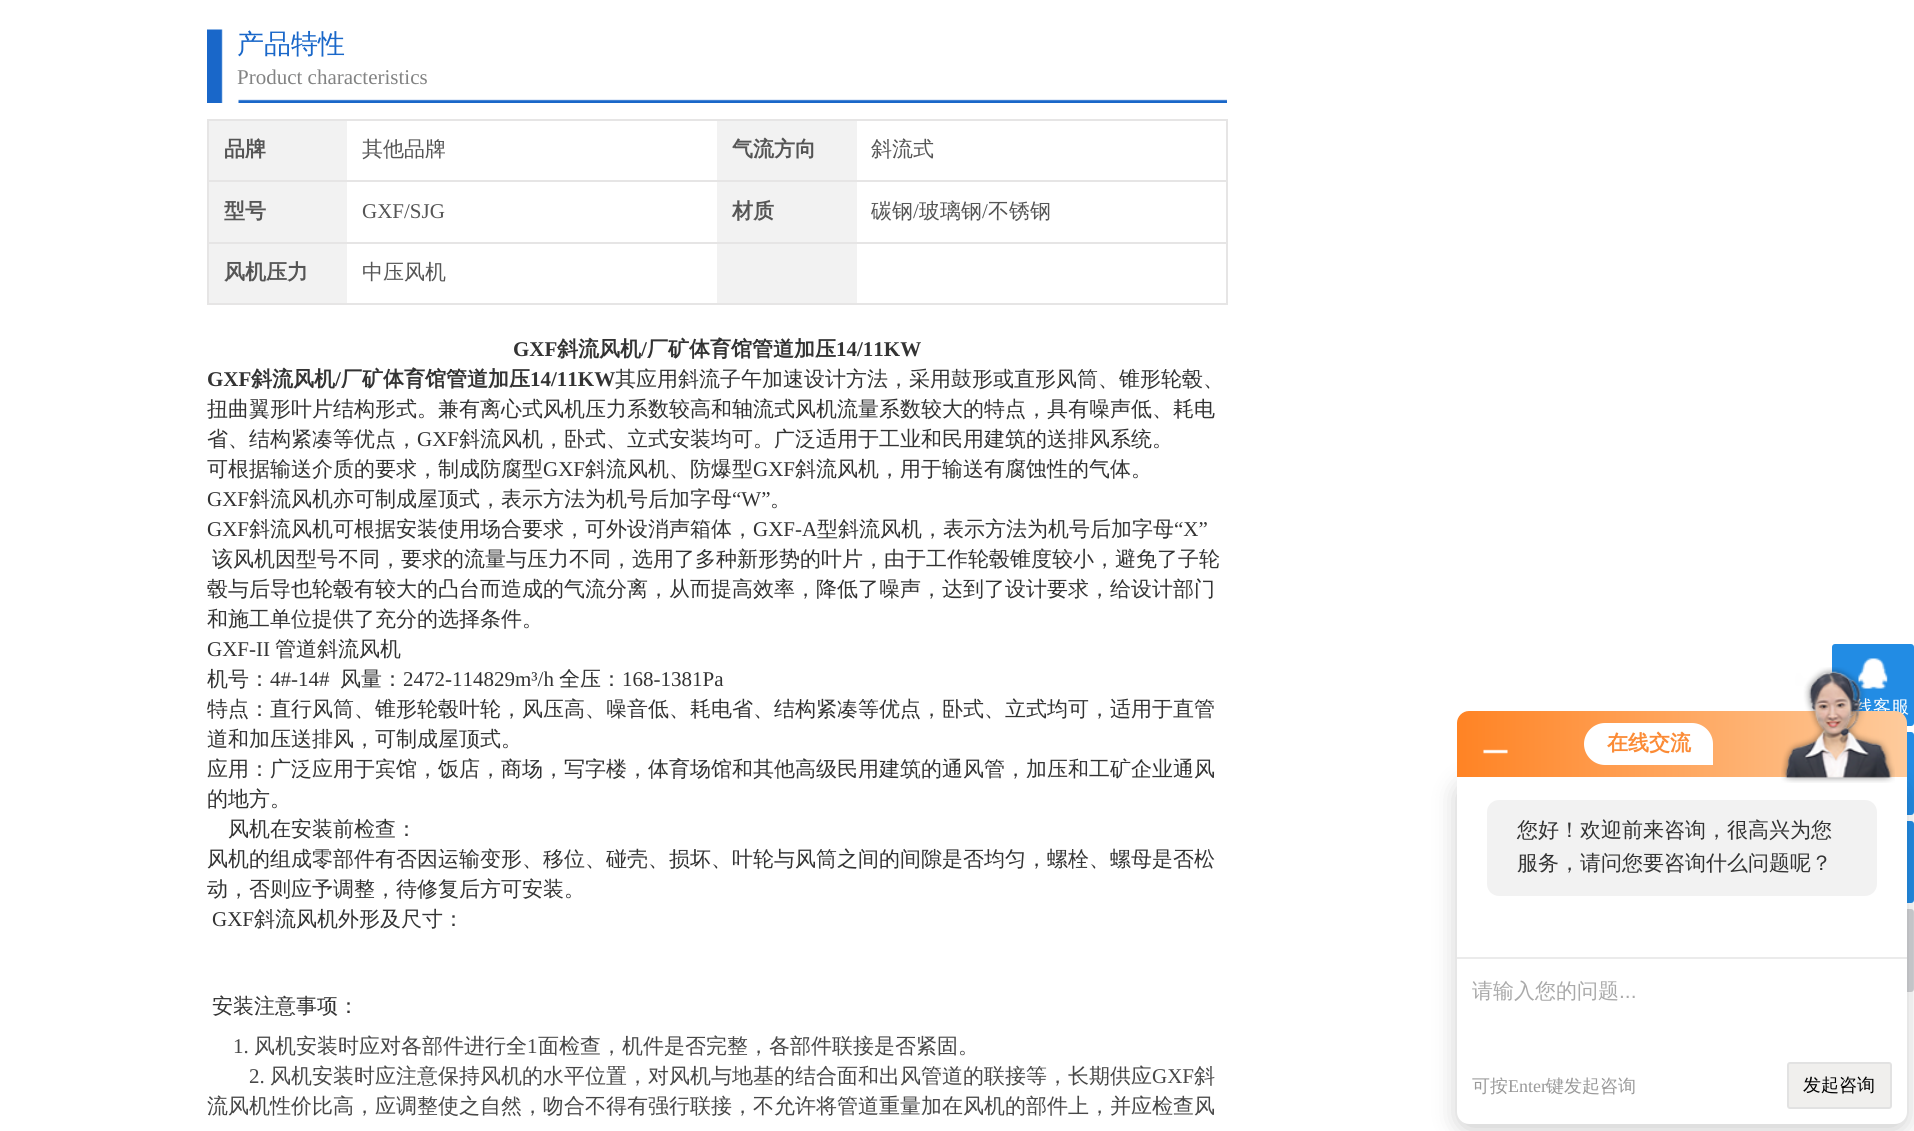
#include <cairo.h>
#include <math.h>
#include <stddef.h>


static void round_rect(cairo_t *cr, double x, double y, double w, double h, double r) {
    cairo_new_sub_path(cr);
    cairo_arc(cr, x + w - r, y + h - r, r, 0, M_PI / 2);
    cairo_arc(cr, x + r, y + h - r, r, M_PI / 2, M_PI);
    cairo_arc(cr, x + r, y + r, r, M_PI, 1.5 * M_PI);
    cairo_arc(cr, x + w - r, y + r, r, 1.5 * M_PI, 2 * M_PI);
    cairo_close_path(cr);
}

static void shadow(cairo_t *cr, double x, double y, double w, double h, double r, double blur, double alpha) {
    cairo_push_group_with_content(cr, CAIRO_CONTENT_ALPHA);
    cairo_set_operator(cr, CAIRO_OPERATOR_SOURCE);
    for (int i = 15; i >= -15 && fmin(w, h) + blur * i / 3 > 0; i -= 2) {
        double e = blur * i / 6;
        cairo_set_source_rgba(cr, 0, 0, 0, alpha * erfc((i - 1) / 8.5) / 2);
        round_rect(cr, x - e, y - e, w + 2 * e, h + 2 * e, fmax(0, fmin(r + e + blur * .6, fmin(w, h) / 2 + e)));
        cairo_fill(cr);
    }
    cairo_pattern_t *soft = cairo_pop_group(cr);
    cairo_mask(cr, soft);
    cairo_pattern_destroy(soft);
}

static void picture(cairo_t *cr, const char *path, double x, double y, double w, double h) {
    cairo_surface_t *image = cairo_image_surface_create_from_png(path);
    cairo_save(cr);
    cairo_set_source_surface(cr, image, x, y);
    cairo_rectangle(cr, x, y, w, h);
    cairo_fill(cr);
    cairo_restore(cr);
    cairo_surface_destroy(image);
}

int main(void) {
    cairo_surface_t *surface = cairo_image_surface_create(CAIRO_FORMAT_RGB24, 1914, 1131);
    cairo_t *cr = cairo_create(surface);
    cairo_font_options_t *options = cairo_font_options_create();
    cairo_font_options_set_hint_metrics(options, CAIRO_HINT_METRICS_OFF);
    cairo_font_options_set_hint_style(options, CAIRO_HINT_STYLE_NONE);
    cairo_set_font_options(cr, options);
    cairo_set_miter_limit(cr, 4);
    cairo_pattern_t *gradient;
    cairo_set_source_rgb(cr, 1, 1, 1);
    cairo_paint(cr);
    picture(cr, "img1.png", 207, 29, 1020, 74);
    cairo_select_font_face(cr, "WenQuanYi Zen Hei Medium", CAIRO_FONT_SLANT_NORMAL, CAIRO_FONT_WEIGHT_NORMAL);
    cairo_set_font_size(cr, 27);
    cairo_set_source_rgb(cr, 0.098, 0.404, 0.788);
    cairo_move_to(cr, 237, 53);
    cairo_show_text(cr, "产品特性");
    cairo_select_font_face(cr, "Liberation Serif", CAIRO_FONT_SLANT_NORMAL, CAIRO_FONT_WEIGHT_NORMAL);
    cairo_set_font_size(cr, 21);
    cairo_set_source_rgb(cr, 0.51, 0.514, 0.514);
    cairo_move_to(cr, 237, 84);
    cairo_show_text(cr, "Product characteristics");
    cairo_set_source_rgb(cr, 0.902, 0.898, 0.898);
    cairo_rectangle(cr, 207, 119, 1020, 2);
    cairo_fill(cr);
    cairo_rectangle(cr, 1226, 119, 2, 186);
    cairo_fill(cr);
    cairo_rectangle(cr, 207, 119, 2, 186);
    cairo_fill(cr);
    cairo_set_source_rgb(cr, 0.949, 0.949, 0.949);
    cairo_rectangle(cr, 209, 121, 138, 59);
    cairo_fill(cr);
    cairo_select_font_face(cr, "WenQuanYi Zen Hei", CAIRO_FONT_SLANT_NORMAL, CAIRO_FONT_WEIGHT_BOLD);
    cairo_set_source_rgb(cr, 0.333, 0.333, 0.333);
    cairo_move_to(cr, 224, 156);
    cairo_show_text(cr, "品牌");
    cairo_select_font_face(cr, "WenQuanYi Zen Hei Medium", CAIRO_FONT_SLANT_NORMAL, CAIRO_FONT_WEIGHT_NORMAL);
    cairo_move_to(cr, 362, 156);
    cairo_show_text(cr, "其他品牌");
    cairo_set_source_rgb(cr, 0.949, 0.949, 0.949);
    cairo_rectangle(cr, 717, 121, 140, 59);
    cairo_fill(cr);
    cairo_select_font_face(cr, "WenQuanYi Zen Hei", CAIRO_FONT_SLANT_NORMAL, CAIRO_FONT_WEIGHT_BOLD);
    cairo_set_source_rgb(cr, 0.333, 0.333, 0.333);
    cairo_move_to(cr, 732, 156);
    cairo_show_text(cr, "气流方向");
    cairo_set_source_rgb(cr, 0.902, 0.898, 0.898);
    cairo_rectangle(cr, 207, 180, 1020, 2);
    cairo_fill(cr);
    cairo_select_font_face(cr, "WenQuanYi Zen Hei Medium", CAIRO_FONT_SLANT_NORMAL, CAIRO_FONT_WEIGHT_NORMAL);
    cairo_set_source_rgb(cr, 0.333, 0.333, 0.333);
    cairo_move_to(cr, 871, 156);
    cairo_show_text(cr, "斜流式");
    cairo_set_source_rgb(cr, 0.949, 0.949, 0.949);
    cairo_rectangle(cr, 209, 182, 138, 60);
    cairo_fill(cr);
    cairo_select_font_face(cr, "WenQuanYi Zen Hei", CAIRO_FONT_SLANT_NORMAL, CAIRO_FONT_WEIGHT_BOLD);
    cairo_set_source_rgb(cr, 0.333, 0.333, 0.333);
    cairo_move_to(cr, 224, 218);
    cairo_show_text(cr, "型号");
    cairo_select_font_face(cr, "Liberation Serif", CAIRO_FONT_SLANT_NORMAL, CAIRO_FONT_WEIGHT_NORMAL);
    cairo_move_to(cr, 362, 218);
    cairo_show_text(cr, "GXF/SJG");
    cairo_set_source_rgb(cr, 0.949, 0.949, 0.949);
    cairo_rectangle(cr, 717, 182, 140, 60);
    cairo_fill(cr);
    cairo_select_font_face(cr, "WenQuanYi Zen Hei", CAIRO_FONT_SLANT_NORMAL, CAIRO_FONT_WEIGHT_BOLD);
    cairo_set_source_rgb(cr, 0.333, 0.333, 0.333);
    cairo_move_to(cr, 732, 218);
    cairo_show_text(cr, "材质");
    cairo_set_source_rgb(cr, 0.902, 0.898, 0.898);
    cairo_rectangle(cr, 207, 242, 1020, 2);
    cairo_fill(cr);
    cairo_select_font_face(cr, "WenQuanYi Zen Hei Medium", CAIRO_FONT_SLANT_NORMAL, CAIRO_FONT_WEIGHT_NORMAL);
    cairo_set_source_rgb(cr, 0.333, 0.333, 0.333);
    cairo_move_to(cr, 871, 218);
    cairo_show_text(cr, "碳钢");
    cairo_select_font_face(cr, "Liberation Serif", CAIRO_FONT_SLANT_NORMAL, CAIRO_FONT_WEIGHT_NORMAL);
    cairo_move_to(cr, 913, 218);
    cairo_show_text(cr, "/");
    cairo_select_font_face(cr, "WenQuanYi Zen Hei Medium", CAIRO_FONT_SLANT_NORMAL, CAIRO_FONT_WEIGHT_NORMAL);
    cairo_move_to(cr, 919, 218);
    cairo_show_text(cr, "玻璃钢");
    cairo_select_font_face(cr, "Liberation Serif", CAIRO_FONT_SLANT_NORMAL, CAIRO_FONT_WEIGHT_NORMAL);
    cairo_move_to(cr, 982, 218);
    cairo_show_text(cr, "/");
    cairo_select_font_face(cr, "WenQuanYi Zen Hei Medium", CAIRO_FONT_SLANT_NORMAL, CAIRO_FONT_WEIGHT_NORMAL);
    cairo_move_to(cr, 988, 218);
    cairo_show_text(cr, "不锈钢");
    cairo_set_source_rgb(cr, 0.949, 0.949, 0.949);
    cairo_rectangle(cr, 209, 244, 138, 59);
    cairo_fill(cr);
    cairo_select_font_face(cr, "WenQuanYi Zen Hei", CAIRO_FONT_SLANT_NORMAL, CAIRO_FONT_WEIGHT_BOLD);
    cairo_set_source_rgb(cr, 0.333, 0.333, 0.333);
    cairo_move_to(cr, 224, 279);
    cairo_show_text(cr, "风机压力");
    cairo_select_font_face(cr, "WenQuanYi Zen Hei Medium", CAIRO_FONT_SLANT_NORMAL, CAIRO_FONT_WEIGHT_NORMAL);
    cairo_move_to(cr, 362, 279);
    cairo_show_text(cr, "中压风机");
    cairo_set_source_rgb(cr, 0.949, 0.949, 0.949);
    cairo_rectangle(cr, 717, 244, 140, 59);
    cairo_fill(cr);
    cairo_set_source_rgb(cr, 0.902, 0.898, 0.898);
    cairo_rectangle(cr, 207, 303, 1020, 2);
    cairo_fill(cr);
    cairo_select_font_face(cr, "Liberation Serif", CAIRO_FONT_SLANT_NORMAL, CAIRO_FONT_WEIGHT_BOLD);
    cairo_set_source_rgb(cr, 0.2, 0.2, 0.2);
    cairo_move_to(cr, 513, 356);
    cairo_show_text(cr, "GXF");
    cairo_select_font_face(cr, "WenQuanYi Zen Hei", CAIRO_FONT_SLANT_NORMAL, CAIRO_FONT_WEIGHT_BOLD);
    cairo_move_to(cr, 557, 356);
    cairo_show_text(cr, "斜流风机");
    cairo_select_font_face(cr, "Liberation Serif", CAIRO_FONT_SLANT_NORMAL, CAIRO_FONT_WEIGHT_BOLD);
    cairo_move_to(cr, 641, 356);
    cairo_show_text(cr, "/");
    cairo_select_font_face(cr, "WenQuanYi Zen Hei", CAIRO_FONT_SLANT_NORMAL, CAIRO_FONT_WEIGHT_BOLD);
    cairo_move_to(cr, 647, 356);
    cairo_show_text(cr, "厂矿体育馆管道加压");
    cairo_select_font_face(cr, "Liberation Serif", CAIRO_FONT_SLANT_NORMAL, CAIRO_FONT_WEIGHT_BOLD);
    cairo_move_to(cr, 836, 356);
    cairo_show_text(cr, "14/11KW");
    cairo_move_to(cr, 207, 386);
    cairo_show_text(cr, "GXF");
    cairo_select_font_face(cr, "WenQuanYi Zen Hei", CAIRO_FONT_SLANT_NORMAL, CAIRO_FONT_WEIGHT_BOLD);
    cairo_move_to(cr, 251, 386);
    cairo_show_text(cr, "斜流风机");
    cairo_select_font_face(cr, "Liberation Serif", CAIRO_FONT_SLANT_NORMAL, CAIRO_FONT_WEIGHT_BOLD);
    cairo_move_to(cr, 335, 386);
    cairo_show_text(cr, "/");
    cairo_select_font_face(cr, "WenQuanYi Zen Hei", CAIRO_FONT_SLANT_NORMAL, CAIRO_FONT_WEIGHT_BOLD);
    cairo_move_to(cr, 341, 386);
    cairo_show_text(cr, "厂矿体育馆管道加压");
    cairo_select_font_face(cr, "Liberation Serif", CAIRO_FONT_SLANT_NORMAL, CAIRO_FONT_WEIGHT_BOLD);
    cairo_move_to(cr, 530, 386);
    cairo_show_text(cr, "14/11KW");
    cairo_select_font_face(cr, "WenQuanYi Zen Hei Medium", CAIRO_FONT_SLANT_NORMAL, CAIRO_FONT_WEIGHT_NORMAL);
    cairo_move_to(cr, 615, 386);
    cairo_show_text(cr, "其应用斜流子午加速设计方法，采用鼓形或直形风筒、锥形轮毂、");
    cairo_move_to(cr, 207, 416);
    cairo_show_text(cr, "扭曲翼形叶片结构形式。兼有离心式风机压力系数较高和轴流式风机流量系数较大的特点，具有噪声低、耗电");
    cairo_move_to(cr, 207, 446);
    cairo_show_text(cr, "省、结构紧凑等优点，");
    cairo_select_font_face(cr, "Liberation Serif", CAIRO_FONT_SLANT_NORMAL, CAIRO_FONT_WEIGHT_NORMAL);
    cairo_move_to(cr, 417, 446);
    cairo_show_text(cr, "GXF");
    cairo_select_font_face(cr, "WenQuanYi Zen Hei Medium", CAIRO_FONT_SLANT_NORMAL, CAIRO_FONT_WEIGHT_NORMAL);
    cairo_move_to(cr, 459, 446);
    cairo_show_text(cr, "斜流风机，卧式、立式安装均可。广泛适用于工业和民用建筑的送排风系统。");
    cairo_move_to(cr, 207, 476);
    cairo_show_text(cr, "可根据输送介质的要求，制成防腐型");
    cairo_select_font_face(cr, "Liberation Serif", CAIRO_FONT_SLANT_NORMAL, CAIRO_FONT_WEIGHT_NORMAL);
    cairo_move_to(cr, 543, 476);
    cairo_show_text(cr, "GXF");
    cairo_select_font_face(cr, "WenQuanYi Zen Hei Medium", CAIRO_FONT_SLANT_NORMAL, CAIRO_FONT_WEIGHT_NORMAL);
    cairo_move_to(cr, 585, 476);
    cairo_show_text(cr, "斜流风机、防爆型");
    cairo_select_font_face(cr, "Liberation Serif", CAIRO_FONT_SLANT_NORMAL, CAIRO_FONT_WEIGHT_NORMAL);
    cairo_move_to(cr, 753, 476);
    cairo_show_text(cr, "GXF");
    cairo_select_font_face(cr, "WenQuanYi Zen Hei Medium", CAIRO_FONT_SLANT_NORMAL, CAIRO_FONT_WEIGHT_NORMAL);
    cairo_move_to(cr, 795, 476);
    cairo_show_text(cr, "斜流风机，用于输送有腐蚀性的气体。");
    cairo_select_font_face(cr, "Liberation Serif", CAIRO_FONT_SLANT_NORMAL, CAIRO_FONT_WEIGHT_NORMAL);
    cairo_move_to(cr, 207, 506);
    cairo_show_text(cr, "GXF");
    cairo_select_font_face(cr, "WenQuanYi Zen Hei Medium", CAIRO_FONT_SLANT_NORMAL, CAIRO_FONT_WEIGHT_NORMAL);
    cairo_move_to(cr, 249, 506);
    cairo_show_text(cr, "斜流风机亦可制成屋顶式，表示方法为机号后加字母");
    cairo_select_font_face(cr, "Liberation Serif", CAIRO_FONT_SLANT_NORMAL, CAIRO_FONT_WEIGHT_NORMAL);
    cairo_move_to(cr, 732, 506);
    cairo_show_text(cr, "“W”");
    cairo_select_font_face(cr, "WenQuanYi Zen Hei Medium", CAIRO_FONT_SLANT_NORMAL, CAIRO_FONT_WEIGHT_NORMAL);
    cairo_move_to(cr, 770, 506);
    cairo_show_text(cr, "。");
    cairo_select_font_face(cr, "Liberation Serif", CAIRO_FONT_SLANT_NORMAL, CAIRO_FONT_WEIGHT_NORMAL);
    cairo_move_to(cr, 207, 536);
    cairo_show_text(cr, "GXF");
    cairo_select_font_face(cr, "WenQuanYi Zen Hei Medium", CAIRO_FONT_SLANT_NORMAL, CAIRO_FONT_WEIGHT_NORMAL);
    cairo_move_to(cr, 249, 536);
    cairo_show_text(cr, "斜流风机可根据安装使用场合要求，可外设消声箱体，");
    cairo_select_font_face(cr, "Liberation Serif", CAIRO_FONT_SLANT_NORMAL, CAIRO_FONT_WEIGHT_NORMAL);
    cairo_move_to(cr, 753, 536);
    cairo_show_text(cr, "GXF-A");
    cairo_select_font_face(cr, "WenQuanYi Zen Hei Medium", CAIRO_FONT_SLANT_NORMAL, CAIRO_FONT_WEIGHT_NORMAL);
    cairo_move_to(cr, 817, 536);
    cairo_show_text(cr, "型斜流风机，表示方法为机号后加字母");
    cairo_select_font_face(cr, "Liberation Serif", CAIRO_FONT_SLANT_NORMAL, CAIRO_FONT_WEIGHT_NORMAL);
    cairo_move_to(cr, 1174, 536);
    cairo_show_text(cr, "“X”");
    cairo_select_font_face(cr, "WenQuanYi Zen Hei Medium", CAIRO_FONT_SLANT_NORMAL, CAIRO_FONT_WEIGHT_NORMAL);
    cairo_move_to(cr, 212, 566);
    cairo_show_text(cr, "该风机因型号不同，要求的流量与压力不同，选用了多种新形势的叶片，由于工作轮毂锥度较小，避免了子轮");
    cairo_move_to(cr, 207, 596);
    cairo_show_text(cr, "毂与后导也轮毂有较大的凸台而造成的气流分离，从而提高效率，降低了噪声，达到了设计要求，给设计部门");
    cairo_move_to(cr, 207, 626);
    cairo_show_text(cr, "和施工单位提供了充分的选择条件。");
    cairo_select_font_face(cr, "Liberation Serif", CAIRO_FONT_SLANT_NORMAL, CAIRO_FONT_WEIGHT_NORMAL);
    cairo_move_to(cr, 207, 656);
    cairo_show_text(cr, "GXF-II");
    cairo_select_font_face(cr, "WenQuanYi Zen Hei Medium", CAIRO_FONT_SLANT_NORMAL, CAIRO_FONT_WEIGHT_NORMAL);
    cairo_move_to(cr, 275, 656);
    cairo_show_text(cr, "管道斜流风机");
    cairo_move_to(cr, 207, 686);
    cairo_show_text(cr, "机号：");
    cairo_select_font_face(cr, "Liberation Serif", CAIRO_FONT_SLANT_NORMAL, CAIRO_FONT_WEIGHT_NORMAL);
    cairo_move_to(cr, 270, 686);
    cairo_show_text(cr, "4#-14#");
    cairo_select_font_face(cr, "WenQuanYi Zen Hei Medium", CAIRO_FONT_SLANT_NORMAL, CAIRO_FONT_WEIGHT_NORMAL);
    cairo_move_to(cr, 340, 686);
    cairo_show_text(cr, "风量：");
    cairo_select_font_face(cr, "Liberation Serif", CAIRO_FONT_SLANT_NORMAL, CAIRO_FONT_WEIGHT_NORMAL);
    cairo_move_to(cr, 403, 686);
    cairo_show_text(cr, "2472-114829m³/h");
    cairo_select_font_face(cr, "WenQuanYi Zen Hei Medium", CAIRO_FONT_SLANT_NORMAL, CAIRO_FONT_WEIGHT_NORMAL);
    cairo_move_to(cr, 559, 686);
    cairo_show_text(cr, "全压：");
    cairo_select_font_face(cr, "Liberation Serif", CAIRO_FONT_SLANT_NORMAL, CAIRO_FONT_WEIGHT_NORMAL);
    cairo_move_to(cr, 622, 686);
    cairo_show_text(cr, "168-1381Pa");
    cairo_select_font_face(cr, "WenQuanYi Zen Hei Medium", CAIRO_FONT_SLANT_NORMAL, CAIRO_FONT_WEIGHT_NORMAL);
    cairo_move_to(cr, 207, 716);
    cairo_show_text(cr, "特点：直行风筒、锥形轮毂叶轮，风压高、噪音低、耗电省、结构紧凑等优点，卧式、立式均可，适用于直管");
    cairo_move_to(cr, 207, 746);
    cairo_show_text(cr, "道和加压送排风，可制成屋顶式。");
    cairo_move_to(cr, 207, 776);
    cairo_show_text(cr, "应用：广泛应用于宾馆，饭店，商场，写字楼，体育场馆和其他高级民用建筑的通风管，加压和工矿企业通风");
    cairo_move_to(cr, 207, 806);
    cairo_show_text(cr, "的地方。");
    cairo_move_to(cr, 228, 836);
    cairo_show_text(cr, "风机在安装前检查：");
    cairo_move_to(cr, 207, 866);
    cairo_show_text(cr, "风机的组成零部件有否因运输变形、移位、碰壳、损坏、叶轮与风筒之间的间隙是否均匀，螺栓、螺母是否松");
    cairo_move_to(cr, 207, 896);
    cairo_show_text(cr, "动，否则应予调整，待修复后方可安装。");
    cairo_select_font_face(cr, "Liberation Serif", CAIRO_FONT_SLANT_NORMAL, CAIRO_FONT_WEIGHT_NORMAL);
    cairo_move_to(cr, 212, 926);
    cairo_show_text(cr, "GXF");
    cairo_select_font_face(cr, "WenQuanYi Zen Hei Medium", CAIRO_FONT_SLANT_NORMAL, CAIRO_FONT_WEIGHT_NORMAL);
    cairo_move_to(cr, 254, 926);
    cairo_show_text(cr, "斜流风机外形及尺寸：");
    cairo_move_to(cr, 212, 1013);
    cairo_show_text(cr, "安装注意事项：");
    cairo_select_font_face(cr, "Liberation Serif", CAIRO_FONT_SLANT_NORMAL, CAIRO_FONT_WEIGHT_NORMAL);
    cairo_set_source_rgb(cr, 0.278, 0.278, 0.278);
    cairo_move_to(cr, 233, 1053);
    cairo_show_text(cr, "1.");
    cairo_select_font_face(cr, "WenQuanYi Zen Hei Medium", CAIRO_FONT_SLANT_NORMAL, CAIRO_FONT_WEIGHT_NORMAL);
    cairo_move_to(cr, 254, 1053);
    cairo_show_text(cr, "风机安装时应对各部件进行全");
    cairo_select_font_face(cr, "Liberation Serif", CAIRO_FONT_SLANT_NORMAL, CAIRO_FONT_WEIGHT_NORMAL);
    cairo_move_to(cr, 527, 1053);
    cairo_show_text(cr, "1");
    cairo_select_font_face(cr, "WenQuanYi Zen Hei Medium", CAIRO_FONT_SLANT_NORMAL, CAIRO_FONT_WEIGHT_NORMAL);
    cairo_move_to(cr, 538, 1053);
    cairo_show_text(cr, "面检查，机件是否完整，各部件联接是否紧固。");
    cairo_select_font_face(cr, "Liberation Serif", CAIRO_FONT_SLANT_NORMAL, CAIRO_FONT_WEIGHT_NORMAL);
    cairo_move_to(cr, 249, 1083);
    cairo_show_text(cr, "2.");
    cairo_select_font_face(cr, "WenQuanYi Zen Hei Medium", CAIRO_FONT_SLANT_NORMAL, CAIRO_FONT_WEIGHT_NORMAL);
    cairo_move_to(cr, 270, 1083);
    cairo_show_text(cr, "风机安装时应注意保持风机的水平位置，对风机与地基的结合面和出风管道的联接等，长期供应");
    cairo_select_font_face(cr, "Liberation Serif", CAIRO_FONT_SLANT_NORMAL, CAIRO_FONT_WEIGHT_NORMAL);
    cairo_move_to(cr, 1152, 1083);
    cairo_show_text(cr, "GXF");
    cairo_select_font_face(cr, "WenQuanYi Zen Hei Medium", CAIRO_FONT_SLANT_NORMAL, CAIRO_FONT_WEIGHT_NORMAL);
    cairo_move_to(cr, 1194, 1083);
    cairo_show_text(cr, "斜");
    cairo_move_to(cr, 207, 1113);
    cairo_show_text(cr, "流风机性价比高，应调整使之自然，吻合不得有强行联接，不允许将管道重量加在风机的部件上，并应检查风");
    cairo_set_source_rgb(cr, 0.133, 0.549, 0.894);
    round_rect(cr, 1832, 644, 82, 82, 3);
    cairo_fill(cr);
    picture(cr, "img2.png", 1858, 658, 30, 31);
    cairo_set_font_size(cr, 18);
    cairo_set_source_rgb(cr, 1, 1, 1);
    cairo_move_to(cr, 1855, 713);
    cairo_show_text(cr, "线客服");
    cairo_set_source_rgb(cr, 0.133, 0.549, 0.894);
    round_rect(cr, 1832, 732, 82, 83, 3);
    cairo_fill(cr);
    round_rect(cr, 1832, 821, 82, 82, 3);
    cairo_fill(cr);
    cairo_set_source_rgb(cr, 0.824, 0.827, 0.839);
    round_rect(cr, 1832, 909, 82, 83, 3);
    cairo_fill(cr);
    cairo_set_source_rgb(cr, 0, 0, 0);
    shadow(cr, 1457, 783, 450, 347, 12, 12, 0.2);
    gradient = cairo_pattern_create_linear(1457, 744, 1907, 744);
    cairo_pattern_add_color_stop_rgba(gradient, 0, 1, 0.514, 0.141, 1);
    cairo_pattern_add_color_stop_rgba(gradient, 1, 0.996, 0.796, 0.612, 1);
    cairo_set_source(cr, gradient);
    cairo_pattern_destroy(gradient);
    cairo_new_path(cr);
    cairo_move_to(cr, 1469, 711);
    cairo_line_to(cr, 1895, 711);
    cairo_curve_to(cr, 1901.5, 711, 1907, 716.5, 1907, 723);
    cairo_line_to(cr, 1907, 777);
    cairo_line_to(cr, 1457, 777);
    cairo_line_to(cr, 1457, 723);
    cairo_curve_to(cr, 1457, 716.5, 1462.5, 711, 1469, 711);
    cairo_close_path(cr);
    cairo_fill(cr);
    picture(cr, "img3.png", 1483, 749, 25, 5);
    cairo_set_source_rgb(cr, 1, 1, 1);
    cairo_new_path(cr);
    cairo_move_to(cr, 1605, 723);
    cairo_line_to(cr, 1692, 723);
    cairo_curve_to(cr, 1703.5, 723, 1713, 732.5, 1713, 744);
    cairo_line_to(cr, 1713, 765);
    cairo_line_to(cr, 1605, 765);
    cairo_curve_to(cr, 1593.5, 765, 1584, 755.5, 1584, 744);
    cairo_curve_to(cr, 1584, 732.5, 1593.5, 723, 1605, 723);
    cairo_close_path(cr);
    cairo_fill(cr);
    cairo_select_font_face(cr, "WenQuanYi Zen Hei", CAIRO_FONT_SLANT_NORMAL, CAIRO_FONT_WEIGHT_BOLD);
    cairo_set_font_size(cr, 21);
    cairo_set_source_rgb(cr, 0.984, 0.545, 0.212);
    cairo_move_to(cr, 1607, 750);
    cairo_show_text(cr, "在线交流");
    cairo_set_source_rgb(cr, 1, 1, 1);
    cairo_new_path(cr);
    cairo_move_to(cr, 1457, 777);
    cairo_line_to(cr, 1907, 777);
    cairo_line_to(cr, 1907, 1112);
    cairo_curve_to(cr, 1907, 1118.5, 1901.5, 1124, 1895, 1124);
    cairo_line_to(cr, 1469, 1124);
    cairo_curve_to(cr, 1462.5, 1124, 1457, 1118.5, 1457, 1112);
    cairo_close_path(cr);
    cairo_fill(cr);
    picture(cr, "img4.png", 1781, 667, 114, 116);
    cairo_set_source_rgb(cr, 0.949, 0.949, 0.949);
    round_rect(cr, 1487, 800, 390, 96, 12);
    cairo_fill(cr);
    cairo_select_font_face(cr, "WenQuanYi Zen Hei Medium", CAIRO_FONT_SLANT_NORMAL, CAIRO_FONT_WEIGHT_NORMAL);
    cairo_set_source_rgb(cr, 0.2, 0.2, 0.2);
    cairo_move_to(cr, 1517, 837);
    cairo_show_text(cr, "您好！欢迎前来咨询，很高兴为您");
    cairo_move_to(cr, 1517, 870);
    cairo_show_text(cr, "服务，请问您要咨询什么问题呢？");
    cairo_set_source_rgb(cr, 0.918, 0.918, 0.918);
    cairo_rectangle(cr, 1457, 957, 450, 2);
    cairo_fill(cr);
    cairo_set_source_rgb(cr, 0.667, 0.667, 0.667);
    cairo_move_to(cr, 1472, 998);
    cairo_show_text(cr, "请输入您的问题");
    cairo_select_font_face(cr, "Liberation Sans", CAIRO_FONT_SLANT_NORMAL, CAIRO_FONT_WEIGHT_NORMAL);
    cairo_move_to(cr, 1619, 998);
    cairo_show_text(cr, "...");
    cairo_select_font_face(cr, "WenQuanYi Zen Hei Medium", CAIRO_FONT_SLANT_NORMAL, CAIRO_FONT_WEIGHT_NORMAL);
    cairo_set_font_size(cr, 18);
    cairo_set_source_rgb(cr, 0.6, 0.6, 0.6);
    cairo_move_to(cr, 1472, 1092);
    cairo_show_text(cr, "可按");
    cairo_select_font_face(cr, "Liberation Serif", CAIRO_FONT_SLANT_NORMAL, CAIRO_FONT_WEIGHT_NORMAL);
    cairo_move_to(cr, 1508, 1092);
    cairo_show_text(cr, "Enter");
    cairo_select_font_face(cr, "WenQuanYi Zen Hei Medium", CAIRO_FONT_SLANT_NORMAL, CAIRO_FONT_WEIGHT_NORMAL);
    cairo_move_to(cr, 1546, 1092);
    cairo_show_text(cr, "键发起咨询");
    cairo_set_source_rgb(cr, 0.941, 0.937, 0.929);
    round_rect(cr, 1788, 1063, 103, 45, 2);
    cairo_fill_preserve(cr);
    cairo_set_source_rgb(cr, 0.886, 0.886, 0.886);
    cairo_stroke(cr);
    cairo_set_source_rgb(cr, 0, 0, 0);
    cairo_move_to(cr, 1803, 1091);
    cairo_show_text(cr, "发起咨询");
    cairo_surface_write_to_png(surface, "page.png");
    cairo_font_options_destroy(options);
    cairo_destroy(cr);
    cairo_surface_destroy(surface);
    return 0;
}
